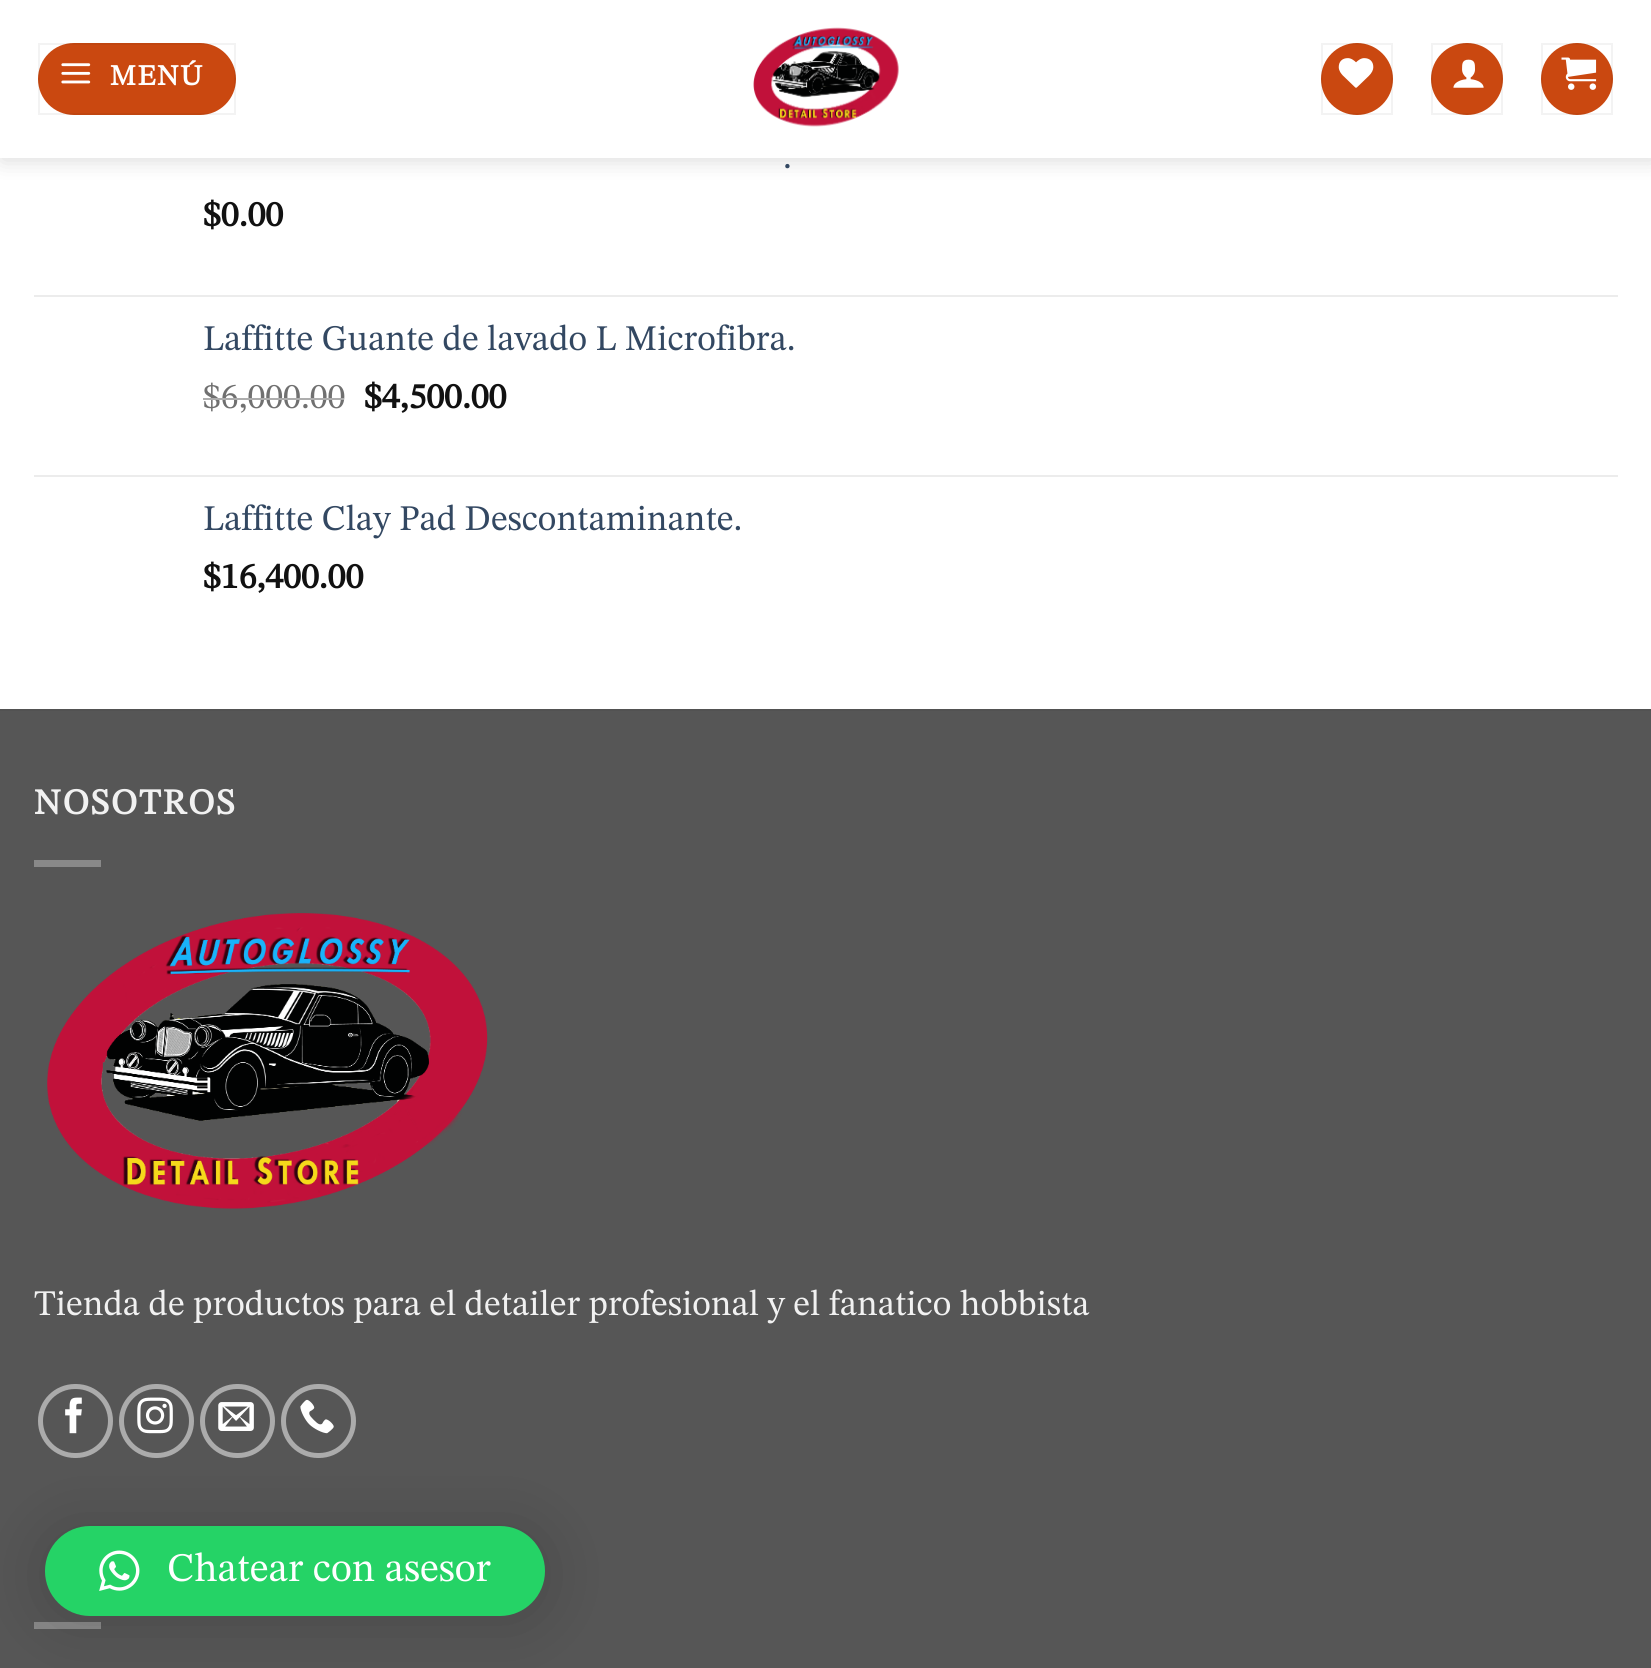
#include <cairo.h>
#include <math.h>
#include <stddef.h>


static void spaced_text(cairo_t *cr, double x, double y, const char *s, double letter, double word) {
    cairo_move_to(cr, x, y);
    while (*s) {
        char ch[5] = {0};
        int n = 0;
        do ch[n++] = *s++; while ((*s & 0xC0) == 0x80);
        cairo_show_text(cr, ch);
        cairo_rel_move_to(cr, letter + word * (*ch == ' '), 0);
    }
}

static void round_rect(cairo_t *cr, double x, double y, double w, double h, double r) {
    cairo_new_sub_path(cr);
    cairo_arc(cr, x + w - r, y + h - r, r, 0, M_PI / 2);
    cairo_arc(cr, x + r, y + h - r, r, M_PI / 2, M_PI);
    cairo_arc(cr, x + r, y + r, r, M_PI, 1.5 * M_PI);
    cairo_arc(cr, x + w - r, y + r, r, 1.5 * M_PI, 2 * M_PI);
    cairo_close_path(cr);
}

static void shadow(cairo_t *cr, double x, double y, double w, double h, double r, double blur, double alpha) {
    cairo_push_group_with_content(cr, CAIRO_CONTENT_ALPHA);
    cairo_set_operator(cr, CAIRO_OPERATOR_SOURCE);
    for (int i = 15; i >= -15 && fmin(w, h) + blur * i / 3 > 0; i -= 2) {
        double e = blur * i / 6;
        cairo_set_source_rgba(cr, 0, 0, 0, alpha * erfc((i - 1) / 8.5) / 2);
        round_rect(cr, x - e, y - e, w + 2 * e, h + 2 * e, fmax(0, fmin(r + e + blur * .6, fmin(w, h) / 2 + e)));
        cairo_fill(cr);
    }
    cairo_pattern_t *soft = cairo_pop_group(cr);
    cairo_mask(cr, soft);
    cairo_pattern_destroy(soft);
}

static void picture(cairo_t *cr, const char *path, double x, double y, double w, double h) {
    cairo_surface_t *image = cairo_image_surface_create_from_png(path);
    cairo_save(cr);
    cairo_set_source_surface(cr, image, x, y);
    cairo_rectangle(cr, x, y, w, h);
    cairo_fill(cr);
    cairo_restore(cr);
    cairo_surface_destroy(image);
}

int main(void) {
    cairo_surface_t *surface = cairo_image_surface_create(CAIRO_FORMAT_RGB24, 1651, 1668);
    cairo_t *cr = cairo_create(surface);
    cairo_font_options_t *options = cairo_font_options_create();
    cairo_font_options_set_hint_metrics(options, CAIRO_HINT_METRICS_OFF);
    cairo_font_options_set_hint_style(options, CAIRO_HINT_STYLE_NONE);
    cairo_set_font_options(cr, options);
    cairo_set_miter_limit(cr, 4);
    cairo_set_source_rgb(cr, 1, 1, 1);
    cairo_paint(cr);
    cairo_set_source_rgb(cr, 0, 0, 0);
    shadow(cr, 2, 2, 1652, 158, 0, 11, 0.15);
    cairo_set_source_rgb(cr, 1, 1, 1);
    cairo_rectangle(cr, 0, 0, 1651, 158);
    cairo_fill(cr);
    cairo_set_source_rgb(cr, 0.792, 0.282, 0.063);
    round_rect(cr, 38, 43, 198, 72, 36);
    cairo_fill(cr);
    cairo_rectangle(cr, 39, 44, 196, 70);
    cairo_set_source_rgba(cr, 0, 0, 0, 0.05);
    cairo_stroke(cr);
    picture(cr, "img1.png", 61, 63, 30, 21);
    cairo_select_font_face(cr, "STIX Two Math", CAIRO_FONT_SLANT_NORMAL, CAIRO_FONT_WEIGHT_BOLD);
    cairo_set_font_size(cr, 29);
    cairo_set_source_rgb(cr, 1, 1, 1);
    spaced_text(cr, 110, 85, "MENÚ", 1.5, 0);
    picture(cr, "img2.png", 753, 27, 146, 100);
    cairo_set_source_rgb(cr, 0.792, 0.282, 0.063);
    cairo_arc(cr, 1357, 79, 36, 0, 2 * M_PI);
    cairo_fill(cr);
    cairo_rectangle(cr, 1322, 44, 70, 70);
    cairo_set_source_rgba(cr, 0, 0, 0, 0.05);
    cairo_stroke(cr);
    picture(cr, "img3.png", 1338, 58, 36, 30);
    cairo_set_source_rgb(cr, 0.792, 0.282, 0.063);
    cairo_arc(cr, 1467, 79, 36, 0, 2 * M_PI);
    cairo_fill(cr);
    cairo_rectangle(cr, 1432, 44, 70, 70);
    cairo_set_source_rgba(cr, 0, 0, 0, 0.05);
    cairo_stroke(cr);
    picture(cr, "img4.png", 1453, 59, 31, 29);
    cairo_set_source_rgb(cr, 0.792, 0.282, 0.063);
    cairo_arc(cr, 1577, 79, 36, 0, 2 * M_PI);
    cairo_fill(cr);
    cairo_rectangle(cr, 1542, 44, 70, 70);
    cairo_set_source_rgba(cr, 0, 0, 0, 0.05);
    cairo_stroke(cr);
    picture(cr, "img5.png", 1561, 57, 36, 33);
    cairo_select_font_face(cr, "STIX Two Math", CAIRO_FONT_SLANT_NORMAL, CAIRO_FONT_WEIGHT_NORMAL);
    cairo_set_font_size(cr, 36);
    cairo_set_source_rgb(cr, 0.2, 0.282, 0.384);
    cairo_move_to(cr, 783, 168);
    cairo_show_text(cr, ".");
    cairo_select_font_face(cr, "STIX Two Math", CAIRO_FONT_SLANT_NORMAL, CAIRO_FONT_WEIGHT_BOLD);
    cairo_set_source_rgb(cr, 0.067, 0.067, 0.067);
    cairo_move_to(cr, 203, 226);
    cairo_show_text(cr, "$0.00");
    cairo_set_source_rgb(cr, 0.925, 0.925, 0.925);
    cairo_rectangle(cr, 34, 295, 1584, 2);
    cairo_fill(cr);
    cairo_select_font_face(cr, "STIX Two Math", CAIRO_FONT_SLANT_NORMAL, CAIRO_FONT_WEIGHT_NORMAL);
    cairo_set_source_rgb(cr, 0.2, 0.282, 0.384);
    cairo_move_to(cr, 203, 350);
    cairo_show_text(cr, "Laffitte Guante de lavado L Microfibra.");
    cairo_set_source_rgb(cr, 0.439, 0.439, 0.439);
    cairo_move_to(cr, 203, 408);
    cairo_show_text(cr, "$6,000.00");
    cairo_set_source_rgb(cr, 0.678, 0.678, 0.678);
    cairo_rectangle(cr, 203, 398, 141, 2);
    cairo_fill(cr);
    cairo_select_font_face(cr, "STIX Two Math", CAIRO_FONT_SLANT_NORMAL, CAIRO_FONT_WEIGHT_BOLD);
    cairo_set_source_rgb(cr, 0.067, 0.067, 0.067);
    cairo_move_to(cr, 364, 408);
    cairo_show_text(cr, "$4,500.00");
    cairo_set_source_rgb(cr, 0.925, 0.925, 0.925);
    cairo_rectangle(cr, 34, 475, 1584, 2);
    cairo_fill(cr);
    cairo_select_font_face(cr, "STIX Two Math", CAIRO_FONT_SLANT_NORMAL, CAIRO_FONT_WEIGHT_NORMAL);
    cairo_set_source_rgb(cr, 0.2, 0.282, 0.384);
    cairo_move_to(cr, 203, 530);
    cairo_show_text(cr, "Laffitte Clay Pad Descontaminante.");
    cairo_select_font_face(cr, "STIX Two Math", CAIRO_FONT_SLANT_NORMAL, CAIRO_FONT_WEIGHT_BOLD);
    cairo_set_source_rgb(cr, 0.067, 0.067, 0.067);
    cairo_move_to(cr, 203, 588);
    cairo_show_text(cr, "$16,400.00");
    cairo_set_source_rgb(cr, 0.337, 0.337, 0.337);
    cairo_rectangle(cr, 0, 711, 1651, 957);
    cairo_fill(cr);
    cairo_set_source_rgb(cr, 0.322, 0.322, 0.322);
    cairo_rectangle(cr, 0, 709, 1651, 2);
    cairo_fill(cr);
    cairo_set_source_rgb(cr, 0.945, 0.945, 0.945);
    spaced_text(cr, 34, 814, "NOSOTROS", 1.75, 0);
    cairo_set_source_rgb(cr, 0.537, 0.537, 0.537);
    cairo_rectangle(cr, 34, 860, 67, 7);
    cairo_fill(cr);
    picture(cr, "img6.png", 47, 913, 441, 296);
    cairo_select_font_face(cr, "STIX Two Math", CAIRO_FONT_SLANT_NORMAL, CAIRO_FONT_WEIGHT_NORMAL);
    cairo_set_source_rgb(cr, 0.945, 0.945, 0.945);
    cairo_move_to(cr, 34, 1315);
    cairo_show_text(cr, "Tienda de productos para el detailer profesional y el fanatico hobbista");
    round_rect(cr, 40.5, 1386.5, 70, 69, 34.5);
    cairo_set_source_rgb(cr, 0.671, 0.671, 0.671);
    cairo_set_line_width(cr, 5);
    cairo_stroke(cr);
    picture(cr, "img7.png", 65, 1397, 17, 37);
    round_rect(cr, 121.5, 1386.5, 70, 69, 34.5);
    cairo_stroke(cr);
    picture(cr, "img8.png", 137, 1397, 36, 37);
    round_rect(cr, 202.5, 1386.5, 70, 69, 34.5);
    cairo_stroke(cr);
    picture(cr, "img9.png", 218, 1402, 36, 29);
    round_rect(cr, 283.5, 1386.5, 70, 69, 34.5);
    cairo_stroke(cr);
    picture(cr, "img10.png", 300, 1399, 34, 35);
    cairo_set_source_rgb(cr, 0.537, 0.537, 0.537);
    cairo_rectangle(cr, 34, 1622, 67, 7);
    cairo_fill(cr);
    cairo_set_source_rgb(cr, 0, 0, 0);
    shadow(cr, 45, 1530, 500, 90, 45, 36, 0.16);
    cairo_set_source_rgb(cr, 0.145, 0.827, 0.4);
    round_rect(cr, 45, 1526, 500, 90, 45);
    cairo_fill(cr);
    picture(cr, "img11.png", 99, 1550, 41, 41);
    cairo_set_font_size(cr, 40.5);
    cairo_set_source_rgb(cr, 1, 1, 1);
    cairo_move_to(cr, 167, 1581);
    cairo_show_text(cr, "Chatear con asesor");
    cairo_surface_write_to_png(surface, "page.png");
    cairo_font_options_destroy(options);
    cairo_destroy(cr);
    cairo_surface_destroy(surface);
    return 0;
}
